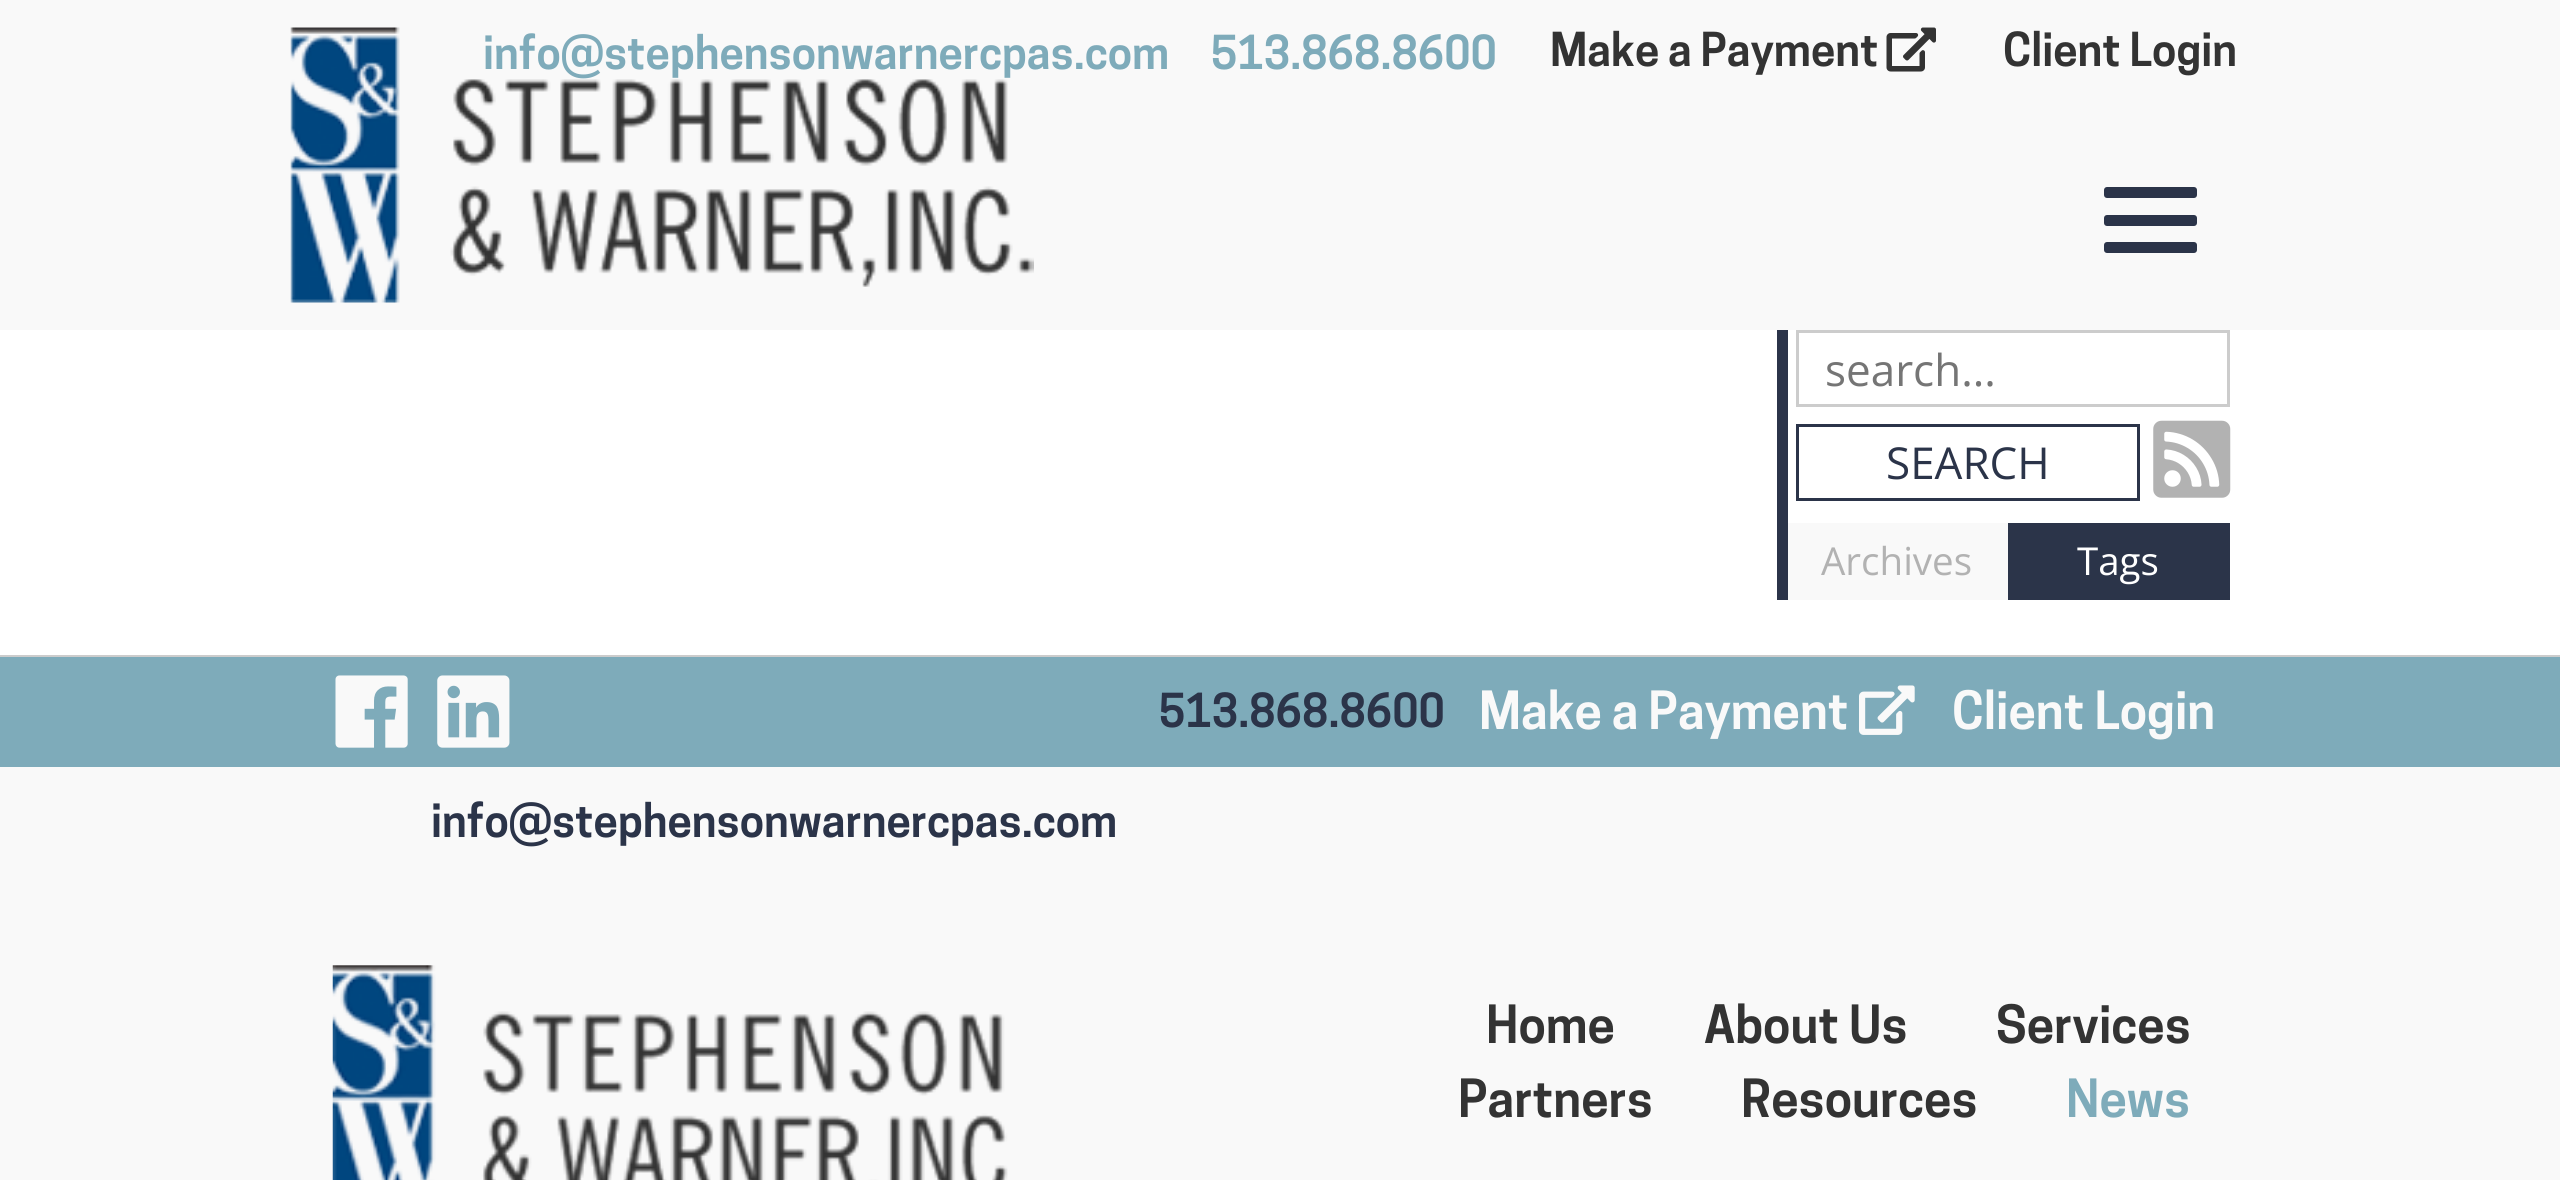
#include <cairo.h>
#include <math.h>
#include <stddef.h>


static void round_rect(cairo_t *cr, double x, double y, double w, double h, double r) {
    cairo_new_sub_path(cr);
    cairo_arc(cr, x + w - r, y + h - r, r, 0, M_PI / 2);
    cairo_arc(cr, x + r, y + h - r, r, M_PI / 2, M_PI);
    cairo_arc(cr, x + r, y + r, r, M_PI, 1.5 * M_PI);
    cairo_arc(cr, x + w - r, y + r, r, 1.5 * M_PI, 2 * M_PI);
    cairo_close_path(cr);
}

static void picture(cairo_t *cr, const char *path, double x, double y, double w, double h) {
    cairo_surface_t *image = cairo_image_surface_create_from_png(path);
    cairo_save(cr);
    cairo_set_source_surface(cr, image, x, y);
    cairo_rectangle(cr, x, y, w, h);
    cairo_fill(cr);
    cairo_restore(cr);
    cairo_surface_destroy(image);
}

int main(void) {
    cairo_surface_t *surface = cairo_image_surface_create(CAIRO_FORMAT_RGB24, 2560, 1180);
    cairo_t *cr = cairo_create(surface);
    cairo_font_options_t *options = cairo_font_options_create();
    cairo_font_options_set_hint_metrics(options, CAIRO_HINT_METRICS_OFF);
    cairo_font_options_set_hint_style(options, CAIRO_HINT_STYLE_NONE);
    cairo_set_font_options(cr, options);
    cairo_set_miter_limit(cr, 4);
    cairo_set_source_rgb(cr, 1, 1, 1);
    cairo_paint(cr);
    cairo_set_source_rgb(cr, 0.976, 0.976, 0.976);
    cairo_rectangle(cr, 0, 0, 2560, 330);
    cairo_fill(cr);
    cairo_select_font_face(cr, "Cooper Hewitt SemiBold", CAIRO_FONT_SLANT_NORMAL, CAIRO_FONT_WEIGHT_NORMAL);
    cairo_set_font_size(cr, 44);
    cairo_set_source_rgb(cr, 0.494, 0.671, 0.729);
    cairo_move_to(cr, 483, 69);
    cairo_show_text(cr, "info@stephensonwarnercpas.com");
    picture(cr, "img1.png", 290, 27, 744, 276);
    cairo_set_source_rgb(cr, 0.169, 0.204, 0.286);
    round_rect(cr, 2104, 187, 93, 11, 3);
    cairo_fill(cr);
    round_rect(cr, 2104, 215, 93, 11, 3);
    cairo_fill(cr);
    round_rect(cr, 2104, 242, 93, 11, 3);
    cairo_fill(cr);
    cairo_set_source_rgb(cr, 0.494, 0.671, 0.729);
    cairo_move_to(cr, 1211, 69);
    cairo_show_text(cr, "513.868.8600");
    cairo_set_source_rgb(cr, 0.2, 0.2, 0.2);
    cairo_move_to(cr, 1550, 66);
    cairo_show_text(cr, "Make a Payment");
    picture(cr, "img2.png", 1886, 27, 50, 45);
    cairo_move_to(cr, 2003, 66);
    cairo_show_text(cr, "Client Login");
    cairo_set_source_rgb(cr, 0.169, 0.204, 0.286);
    cairo_rectangle(cr, 1777, 330, 11, 270);
    cairo_fill(cr);
    cairo_rectangle(cr, 1797.5, 331.5, 431, 74);
    cairo_set_source_rgb(cr, 0.8, 0.8, 0.8);
    cairo_set_line_width(cr, 3);
    cairo_stroke(cr);
    cairo_select_font_face(cr, "Open Sans", CAIRO_FONT_SLANT_NORMAL, CAIRO_FONT_WEIGHT_NORMAL);
    cairo_set_source_rgb(cr, 0.459, 0.459, 0.459);
    cairo_move_to(cr, 1825, 386);
    cairo_show_text(cr, "search...");
    cairo_rectangle(cr, 1797.5, 425.5, 341, 74);
    cairo_set_source_rgb(cr, 0.169, 0.204, 0.286);
    cairo_stroke(cr);
    cairo_move_to(cr, 1886, 479);
    cairo_show_text(cr, "SEARCH");
    picture(cr, "img3.png", 2153, 420, 78, 78);
    cairo_set_source_rgb(cr, 0.976, 0.976, 0.976);
    cairo_rectangle(cr, 1788, 523, 220, 77);
    cairo_fill(cr);
    cairo_set_font_size(cr, 38.5);
    cairo_set_source_rgb(cr, 0.698, 0.698, 0.698);
    cairo_move_to(cr, 1821, 575);
    cairo_show_text(cr, "Archives");
    cairo_set_source_rgb(cr, 0.169, 0.204, 0.286);
    cairo_rectangle(cr, 2008, 523, 222, 77);
    cairo_fill(cr);
    cairo_set_source_rgb(cr, 1, 1, 1);
    cairo_move_to(cr, 2077, 575);
    cairo_show_text(cr, "Tags");
    cairo_set_source_rgb(cr, 0.976, 0.976, 0.976);
    cairo_rectangle(cr, 0, 767, 2560, 413);
    cairo_fill(cr);
    cairo_set_source_rgb(cr, 0.8, 0.8, 0.8);
    cairo_rectangle(cr, 0, 655, 2560, 2);
    cairo_fill(cr);
    cairo_set_source_rgb(cr, 0.494, 0.671, 0.729);
    cairo_rectangle(cr, 0, 657, 2560, 110);
    cairo_fill(cr);
    picture(cr, "img4.png", 335, 675, 73, 73);
    picture(cr, "img5.png", 437, 675, 73, 73);
    cairo_select_font_face(cr, "Cooper Hewitt SemiBold", CAIRO_FONT_SLANT_NORMAL, CAIRO_FONT_WEIGHT_NORMAL);
    cairo_set_font_size(cr, 44);
    cairo_set_source_rgb(cr, 0.169, 0.204, 0.286);
    cairo_move_to(cr, 1159, 727);
    cairo_show_text(cr, "513.868.8600");
    cairo_move_to(cr, 431, 837);
    cairo_show_text(cr, "info@stephensonwarnercpas.com");
    cairo_set_font_size(cr, 49.5);
    cairo_set_source_rgb(cr, 0.976, 0.976, 0.976);
    cairo_move_to(cr, 1479, 729);
    cairo_show_text(cr, "Make a Payment");
    picture(cr, "img6.png", 1859, 685, 56, 50);
    cairo_move_to(cr, 1952, 729);
    cairo_show_text(cr, "Client Login");
    picture(cr, "img7.png", 332, 965, 676, 215);
    cairo_set_source_rgb(cr, 0.2, 0.2, 0.2);
    cairo_move_to(cr, 1486, 1043);
    cairo_show_text(cr, "Home");
    cairo_move_to(cr, 1704, 1043);
    cairo_show_text(cr, "About Us");
    cairo_move_to(cr, 1996, 1043);
    cairo_show_text(cr, "Services");
    cairo_move_to(cr, 1458, 1117);
    cairo_show_text(cr, "Partners");
    cairo_move_to(cr, 1741, 1117);
    cairo_show_text(cr, "Resources");
    cairo_set_source_rgb(cr, 0.494, 0.671, 0.729);
    cairo_move_to(cr, 2066, 1117);
    cairo_show_text(cr, "News");
    cairo_surface_write_to_png(surface, "page.png");
    cairo_font_options_destroy(options);
    cairo_destroy(cr);
    cairo_surface_destroy(surface);
    return 0;
}
